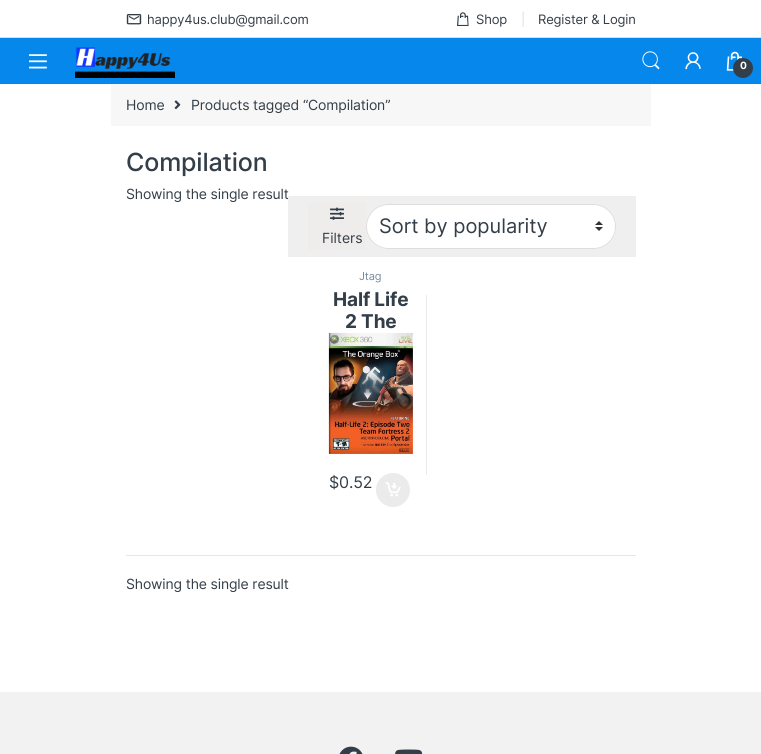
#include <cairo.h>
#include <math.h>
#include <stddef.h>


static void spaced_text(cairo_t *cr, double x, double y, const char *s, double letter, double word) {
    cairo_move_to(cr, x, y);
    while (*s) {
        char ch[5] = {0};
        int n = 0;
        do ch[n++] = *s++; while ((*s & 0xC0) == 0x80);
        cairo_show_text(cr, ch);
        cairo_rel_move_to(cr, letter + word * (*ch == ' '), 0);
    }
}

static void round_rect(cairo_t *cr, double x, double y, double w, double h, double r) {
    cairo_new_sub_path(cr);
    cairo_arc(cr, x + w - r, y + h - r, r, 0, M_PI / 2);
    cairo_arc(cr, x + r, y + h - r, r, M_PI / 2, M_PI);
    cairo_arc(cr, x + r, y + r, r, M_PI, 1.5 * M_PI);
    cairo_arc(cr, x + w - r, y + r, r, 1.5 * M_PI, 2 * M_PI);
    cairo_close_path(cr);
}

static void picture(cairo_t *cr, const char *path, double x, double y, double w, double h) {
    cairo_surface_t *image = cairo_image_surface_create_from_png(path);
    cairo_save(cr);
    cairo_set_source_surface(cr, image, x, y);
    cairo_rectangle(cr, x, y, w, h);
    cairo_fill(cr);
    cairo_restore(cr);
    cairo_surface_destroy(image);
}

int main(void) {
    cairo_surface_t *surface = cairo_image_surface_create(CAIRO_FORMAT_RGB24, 761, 754);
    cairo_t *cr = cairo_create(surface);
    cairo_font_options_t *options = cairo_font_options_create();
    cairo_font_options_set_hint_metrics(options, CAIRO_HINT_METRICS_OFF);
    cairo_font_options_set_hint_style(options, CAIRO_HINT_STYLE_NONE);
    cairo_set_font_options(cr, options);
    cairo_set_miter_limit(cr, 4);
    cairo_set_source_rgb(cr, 1, 1, 1);
    cairo_paint(cr);
    cairo_set_source_rgb(cr, 0.867, 0.867, 0.867);
    cairo_rectangle(cr, 0, 37, 761, 1);
    cairo_fill(cr);
    picture(cr, "img1.png", 126, 14, 16, 11);
    cairo_select_font_face(cr, "Inter", CAIRO_FONT_SLANT_NORMAL, CAIRO_FONT_WEIGHT_NORMAL);
    cairo_set_font_size(cr, 13);
    cairo_set_source_rgb(cr, 0.2, 0.243, 0.282);
    spaced_text(cr, 147, 24, "happy4us.club@gmail.com", -0.15, 0);
    picture(cr, "img2.png", 457, 12, 12, 14);
    spaced_text(cr, 476, 24, "Shop", -0.15, 0);
    cairo_set_source_rgb(cr, 0.867, 0.867, 0.867);
    spaced_text(cr, 521, 24, "|", -0.15, 0);
    cairo_set_source_rgb(cr, 0.2, 0.243, 0.282);
    spaced_text(cr, 538, 24, "Register & Login", -0.15, 0);
    cairo_set_source_rgb(cr, 0.027, 0.529, 0.918);
    cairo_rectangle(cr, 0, 38, 761, 46);
    cairo_fill(cr);
    picture(cr, "img3.png", 29, 54, 18, 15);
    picture(cr, "img4.png", 75, 47, 100, 31);
    picture(cr, "img5.png", 642, 51, 18, 19);
    picture(cr, "img6.png", 685, 52, 16, 18);
    picture(cr, "img7.png", 726, 51, 17, 20);
    cairo_set_source_rgb(cr, 0.2, 0.243, 0.282);
    cairo_arc(cr, 743, 68, 10, 0, 2 * M_PI);
    cairo_fill(cr);
    cairo_select_font_face(cr, "Inter", CAIRO_FONT_SLANT_NORMAL, CAIRO_FONT_WEIGHT_BOLD);
    cairo_set_font_size(cr, 10);
    cairo_set_source_rgb(cr, 1, 1, 1);
    spaced_text(cr, 740, 69, "0", -0.15, 0);
    cairo_set_source_rgb(cr, 0.969, 0.965, 0.965);
    cairo_rectangle(cr, 111, 84, 540, 42);
    cairo_fill(cr);
    cairo_select_font_face(cr, "Inter", CAIRO_FONT_SLANT_NORMAL, CAIRO_FONT_WEIGHT_NORMAL);
    cairo_set_font_size(cr, 14);
    cairo_set_source_rgb(cr, 0.2, 0.243, 0.282);
    spaced_text(cr, 126, 110, "Home", -0.15, 0);
    picture(cr, "img8.png", 174, 100, 7, 10);
    spaced_text(cr, 191, 110, "Products tagged “Compilation”", -0.15, 0);
    cairo_select_font_face(cr, "Inter Medium", CAIRO_FONT_SLANT_NORMAL, CAIRO_FONT_WEIGHT_NORMAL);
    cairo_set_font_size(cr, 25);
    spaced_text(cr, 126, 171, "Compilation", -0.15, 0);
    cairo_select_font_face(cr, "Inter", CAIRO_FONT_SLANT_NORMAL, CAIRO_FONT_WEIGHT_NORMAL);
    cairo_set_font_size(cr, 14);
    spaced_text(cr, 126, 199, "Showing the single result", -0.15, 0);
    cairo_set_source_rgb(cr, 0.937, 0.937, 0.937);
    cairo_rectangle(cr, 288, 196, 348, 61);
    cairo_fill(cr);
    cairo_set_source_rgb(cr, 0.937, 0.925, 0.925);
    cairo_rectangle(cr, 308, 202, 58, 48);
    cairo_fill(cr);
    picture(cr, "img9.png", 330, 207, 14, 13);
    cairo_set_source_rgb(cr, 0.2, 0.243, 0.282);
    cairo_move_to(cr, 322, 243);
    cairo_show_text(cr, "Filters");
    cairo_set_source_rgb(cr, 1, 1, 1);
    round_rect(cr, 366, 204, 250, 45, 22.5);
    cairo_fill(cr);
    picture(cr, "img10.png", 595, 221, 8, 10);
    round_rect(cr, 366.5, 204.5, 249, 44, 22);
    cairo_set_source_rgb(cr, 0.867, 0.867, 0.867);
    cairo_set_line_width(cr, 1);
    cairo_stroke(cr);
    cairo_set_font_size(cr, 20);
    cairo_set_source_rgb(cr, 0.2, 0.243, 0.282);
    cairo_move_to(cr, 379, 233);
    cairo_show_text(cr, "Sort by popularity");
    cairo_set_font_size(cr, 11);
    cairo_set_source_rgb(cr, 0.463, 0.545, 0.62);
    spaced_text(cr, 359, 280, "Jtag", -0.15, 0);
    cairo_select_font_face(cr, "Inter", CAIRO_FONT_SLANT_NORMAL, CAIRO_FONT_WEIGHT_BOLD);
    cairo_set_font_size(cr, 19);
    cairo_set_source_rgb(cr, 0.2, 0.243, 0.282);
    spaced_text(cr, 333, 306, "Half Life", -0.15, 0);
    spaced_text(cr, 345, 328, "2 The", -0.15, 0);
    picture(cr, "img11.png", 328, 332, 85, 122);
    cairo_select_font_face(cr, "Inter", CAIRO_FONT_SLANT_NORMAL, CAIRO_FONT_WEIGHT_NORMAL);
    cairo_set_font_size(cr, 16);
    spaced_text(cr, 329, 488, "$0.52", -0.15, 0);
    cairo_set_source_rgb(cr, 0.918, 0.918, 0.918);
    cairo_new_path(cr);
    cairo_arc(cr, 393, 490, 17, 0, 2 * M_PI);
    cairo_fill(cr);
    picture(cr, "img12.png", 385, 482, 16, 15);
    cairo_rectangle(cr, 426, 295, 1, 180);
    cairo_fill(cr);
    cairo_set_source_rgb(cr, 0.906, 0.906, 0.906);
    cairo_rectangle(cr, 126, 555, 510, 1);
    cairo_fill(cr);
    cairo_set_font_size(cr, 14);
    cairo_set_source_rgb(cr, 0.2, 0.243, 0.282);
    spaced_text(cr, 126, 589, "Showing the single result", -0.15, 0);
    cairo_set_source_rgb(cr, 0.949, 0.949, 0.949);
    cairo_rectangle(cr, 0, 692, 761, 62);
    cairo_fill(cr);
    picture(cr, "img13.png", 339, 746, 24, 8);
    picture(cr, "img14.png", 395, 749, 28, 5);
    cairo_surface_write_to_png(surface, "page.png");
    cairo_font_options_destroy(options);
    cairo_destroy(cr);
    cairo_surface_destroy(surface);
    return 0;
}
